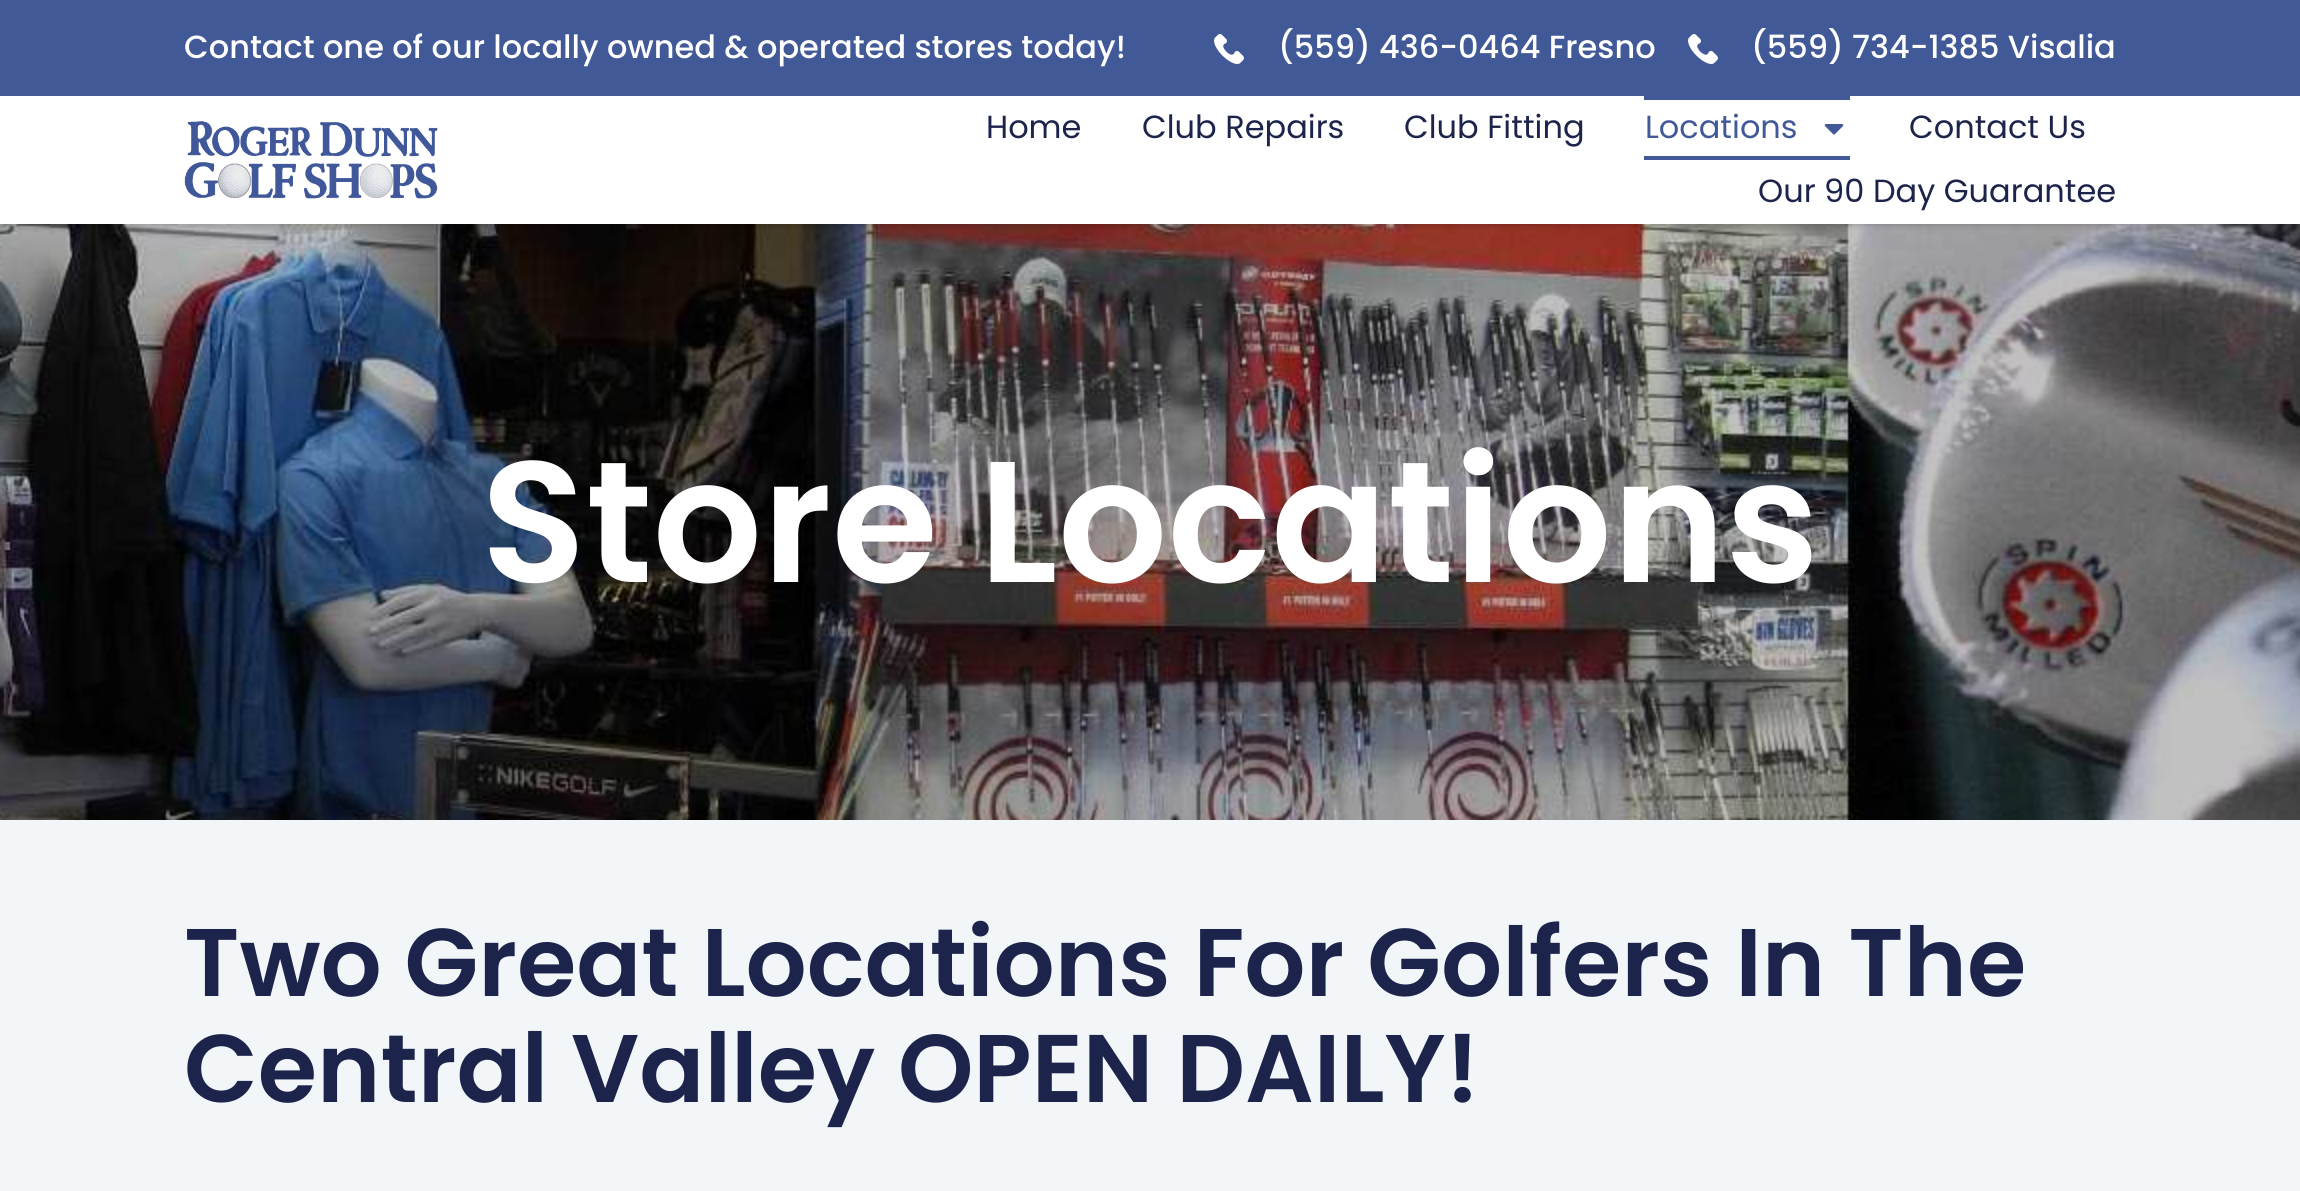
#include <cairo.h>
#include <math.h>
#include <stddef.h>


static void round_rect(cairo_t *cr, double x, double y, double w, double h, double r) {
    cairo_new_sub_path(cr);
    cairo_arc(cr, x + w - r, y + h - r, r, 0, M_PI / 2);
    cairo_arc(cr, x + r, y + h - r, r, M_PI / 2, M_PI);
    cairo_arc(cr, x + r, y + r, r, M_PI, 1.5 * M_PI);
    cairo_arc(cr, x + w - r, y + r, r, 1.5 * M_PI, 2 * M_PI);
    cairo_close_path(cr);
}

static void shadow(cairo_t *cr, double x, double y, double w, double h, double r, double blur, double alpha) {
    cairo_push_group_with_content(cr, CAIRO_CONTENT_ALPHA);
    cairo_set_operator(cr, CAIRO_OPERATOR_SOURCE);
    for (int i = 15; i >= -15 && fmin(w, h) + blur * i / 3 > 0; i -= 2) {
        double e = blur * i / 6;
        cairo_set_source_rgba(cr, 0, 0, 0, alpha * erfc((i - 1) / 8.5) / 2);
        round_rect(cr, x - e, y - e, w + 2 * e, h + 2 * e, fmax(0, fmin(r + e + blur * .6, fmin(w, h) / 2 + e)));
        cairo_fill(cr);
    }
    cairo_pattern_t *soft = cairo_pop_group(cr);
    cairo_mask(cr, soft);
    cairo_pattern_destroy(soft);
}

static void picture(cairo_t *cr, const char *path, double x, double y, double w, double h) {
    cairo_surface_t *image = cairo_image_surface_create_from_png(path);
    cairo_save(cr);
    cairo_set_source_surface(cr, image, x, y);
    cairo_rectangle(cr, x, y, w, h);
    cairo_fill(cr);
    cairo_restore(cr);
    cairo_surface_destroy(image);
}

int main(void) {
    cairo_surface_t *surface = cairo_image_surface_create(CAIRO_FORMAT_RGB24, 2300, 1191);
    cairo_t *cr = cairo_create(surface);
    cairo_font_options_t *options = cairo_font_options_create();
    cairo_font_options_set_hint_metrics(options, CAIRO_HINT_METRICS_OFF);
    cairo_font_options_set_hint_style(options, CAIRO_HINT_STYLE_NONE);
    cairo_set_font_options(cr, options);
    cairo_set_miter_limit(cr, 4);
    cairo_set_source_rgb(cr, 1, 1, 1);
    cairo_paint(cr);
    picture(cr, "img4.png", 0, 224, 2300, 596);
    cairo_save(cr);
    cairo_rectangle(cr, 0, 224, 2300, 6);
    cairo_clip(cr);
    cairo_set_source_rgb(cr, 0, 0, 0);
    shadow(cr, 0, 96, 2300, 128, 0, 4, 0.25);
    cairo_restore(cr);
    cairo_set_source_rgb(cr, 0.259, 0.349, 0.596);
    cairo_rectangle(cr, 0, 0, 2300, 96);
    cairo_fill(cr);
    cairo_select_font_face(cr, "Poppins Medium", CAIRO_FONT_SLANT_NORMAL, CAIRO_FONT_WEIGHT_NORMAL);
    cairo_set_font_size(cr, 32);
    cairo_set_source_rgb(cr, 1, 1, 1);
    cairo_move_to(cr, 184, 58);
    cairo_show_text(cr, "Contact one of our locally owned & operated stores today!");
    picture(cr, "img1.png", 1214, 34, 30, 30);
    cairo_move_to(cr, 1278, 58);
    cairo_show_text(cr, "(559) 436-0464 Fresno");
    picture(cr, "img1.png", 1688, 34, 30, 30);
    cairo_move_to(cr, 1751, 58);
    cairo_show_text(cr, "(559) 734-1385 Visalia");
    picture(cr, "img2.png", 184, 121, 254, 78);
    cairo_select_font_face(cr, "Poppins", CAIRO_FONT_SLANT_NORMAL, CAIRO_FONT_WEIGHT_NORMAL);
    cairo_set_source_rgb(cr, 0.11, 0.141, 0.294);
    cairo_move_to(cr, 986, 138);
    cairo_show_text(cr, "Home");
    cairo_move_to(cr, 1142, 138);
    cairo_show_text(cr, "Club Repairs");
    cairo_move_to(cr, 1404, 138);
    cairo_show_text(cr, "Club Fitting");
    cairo_set_source_rgb(cr, 0.259, 0.349, 0.596);
    cairo_rectangle(cr, 1644, 96, 206, 4);
    cairo_fill(cr);
    cairo_move_to(cr, 1645, 138);
    cairo_show_text(cr, "Locations");
    picture(cr, "img3.png", 1824, 124, 20, 11);
    cairo_rectangle(cr, 1644, 156, 206, 4);
    cairo_fill(cr);
    cairo_set_source_rgb(cr, 0.11, 0.141, 0.294);
    cairo_move_to(cr, 1909, 138);
    cairo_show_text(cr, "Contact Us");
    cairo_move_to(cr, 1758, 202);
    cairo_show_text(cr, "Our 90 Day Guarantee");
    cairo_select_font_face(cr, "Poppins SemiBold", CAIRO_FONT_SLANT_NORMAL, CAIRO_FONT_WEIGHT_NORMAL);
    cairo_set_font_size(cr, 172);
    cairo_set_source_rgb(cr, 1, 1, 1);
    cairo_move_to(cr, 481, 582);
    cairo_show_text(cr, "Store Locations");
    cairo_set_source_rgb(cr, 0.953, 0.961, 0.973);
    cairo_rectangle(cr, 0, 820, 2300, 371);
    cairo_fill(cr);
    cairo_set_font_size(cr, 96);
    cairo_set_source_rgb(cr, 0.11, 0.141, 0.294);
    cairo_move_to(cr, 184, 996);
    cairo_show_text(cr, "Two Great Locations For Golfers In The");
    cairo_move_to(cr, 184, 1102);
    cairo_show_text(cr, "Central Valley OPEN DAILY!");
    cairo_surface_write_to_png(surface, "page.png");
    cairo_font_options_destroy(options);
    cairo_destroy(cr);
    cairo_surface_destroy(surface);
    return 0;
}
